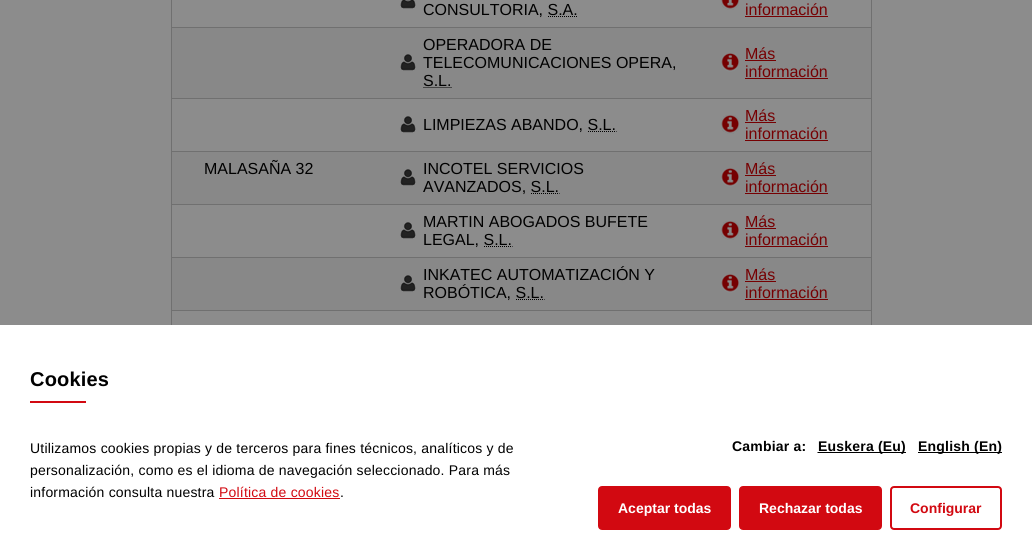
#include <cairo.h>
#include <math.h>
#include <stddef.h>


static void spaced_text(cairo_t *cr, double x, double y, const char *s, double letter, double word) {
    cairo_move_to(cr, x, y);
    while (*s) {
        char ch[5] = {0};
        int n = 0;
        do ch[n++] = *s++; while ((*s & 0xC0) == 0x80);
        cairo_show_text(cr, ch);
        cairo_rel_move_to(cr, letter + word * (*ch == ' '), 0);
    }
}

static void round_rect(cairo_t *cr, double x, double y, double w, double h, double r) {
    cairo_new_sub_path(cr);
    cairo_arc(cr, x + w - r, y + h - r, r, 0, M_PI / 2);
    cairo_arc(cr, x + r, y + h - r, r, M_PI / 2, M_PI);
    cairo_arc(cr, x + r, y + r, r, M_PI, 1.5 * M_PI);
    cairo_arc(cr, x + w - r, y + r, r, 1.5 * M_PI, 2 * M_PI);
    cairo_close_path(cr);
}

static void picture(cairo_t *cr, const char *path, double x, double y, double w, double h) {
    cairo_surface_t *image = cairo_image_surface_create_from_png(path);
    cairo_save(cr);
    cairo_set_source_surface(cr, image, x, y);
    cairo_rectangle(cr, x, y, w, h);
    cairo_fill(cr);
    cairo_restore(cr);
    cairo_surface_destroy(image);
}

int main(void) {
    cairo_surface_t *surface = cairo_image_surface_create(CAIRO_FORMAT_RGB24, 1032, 556);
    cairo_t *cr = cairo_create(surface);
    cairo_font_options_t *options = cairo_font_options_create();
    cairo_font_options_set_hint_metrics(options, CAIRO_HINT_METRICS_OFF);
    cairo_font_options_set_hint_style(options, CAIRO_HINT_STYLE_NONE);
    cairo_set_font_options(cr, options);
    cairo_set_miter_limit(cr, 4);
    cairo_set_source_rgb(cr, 0.549, 0.549, 0.549);
    cairo_paint(cr);
    picture(cr, "img1.png", 400, 0, 16, 9);
    cairo_select_font_face(cr, "Liberation Sans", CAIRO_FONT_SLANT_NORMAL, CAIRO_FONT_WEIGHT_NORMAL);
    cairo_set_font_size(cr, 16);
    cairo_set_source_rgb(cr, 0, 0, 0);
    cairo_move_to(cr, 423, 15);
    cairo_show_text(cr, "CONSULTORIA, S.A.");
    cairo_new_path(cr);
    cairo_move_to(cr, 548, 16.5);
    cairo_line_to(cr, 578, 16.5);
    cairo_set_line_width(cr, 1);
    cairo_set_dash(cr, (double[]){1, 1}, 2, 0);
    cairo_stroke(cr);
    picture(cr, "img2.png", 721, 0, 18, 10);
    cairo_set_source_rgb(cr, 0.463, 0, 0.008);
    cairo_move_to(cr, 745, 15);
    cairo_show_text(cr, "información");
    cairo_rectangle(cr, 745, 16, 83, 1);
    cairo_fill(cr);
    cairo_set_source_rgb(cr, 0.533, 0.533, 0.533);
    cairo_rectangle(cr, 172, 152, 699, 52);
    cairo_fill(cr);
    cairo_set_source_rgb(cr, 0, 0, 0);
    cairo_move_to(cr, 204, 174);
    cairo_show_text(cr, "MALASAÑA 32");
    cairo_set_source_rgb(cr, 0.533, 0.533, 0.533);
    cairo_rectangle(cr, 172, 28, 699, 70);
    cairo_fill(cr);
    cairo_set_source_rgb(cr, 0.439, 0.439, 0.439);
    cairo_rectangle(cr, 171, 27, 701, 1);
    cairo_fill(cr);
    cairo_rectangle(cr, 171, 98, 701, 1);
    cairo_fill(cr);
    cairo_rectangle(cr, 171, 151, 701, 1);
    cairo_fill(cr);
    cairo_rectangle(cr, 171, 204, 701, 1);
    cairo_fill(cr);
    cairo_rectangle(cr, 171, 257, 701, 1);
    cairo_fill(cr);
    cairo_rectangle(cr, 171, 310, 701, 1);
    cairo_fill(cr);
    cairo_rectangle(cr, 871, 310, 1, 15);
    cairo_fill(cr);
    cairo_rectangle(cr, 871, 257, 1, 54);
    cairo_fill(cr);
    cairo_rectangle(cr, 871, 204, 1, 54);
    cairo_fill(cr);
    cairo_rectangle(cr, 871, 151, 1, 54);
    cairo_fill(cr);
    cairo_rectangle(cr, 871, 98, 1, 54);
    cairo_fill(cr);
    cairo_rectangle(cr, 871, 0, 1, 99);
    cairo_fill(cr);
    cairo_rectangle(cr, 171, 310, 1, 15);
    cairo_fill(cr);
    cairo_rectangle(cr, 171, 257, 1, 54);
    cairo_fill(cr);
    cairo_rectangle(cr, 171, 204, 1, 54);
    cairo_fill(cr);
    cairo_rectangle(cr, 171, 151, 1, 54);
    cairo_fill(cr);
    cairo_rectangle(cr, 171, 98, 1, 54);
    cairo_fill(cr);
    cairo_rectangle(cr, 171, 0, 1, 99);
    cairo_fill(cr);
    picture(cr, "img3.png", 400, 54, 16, 17);
    cairo_set_source_rgb(cr, 0, 0, 0);
    cairo_move_to(cr, 423, 50);
    cairo_show_text(cr, "OPERADORA DE");
    cairo_move_to(cr, 423, 68);
    cairo_show_text(cr, "TELECOMUNICACIONES OPERA,");
    cairo_move_to(cr, 423, 86);
    cairo_show_text(cr, "S.L.");
    cairo_new_path(cr);
    cairo_move_to(cr, 423.5, 87.5);
    cairo_line_to(cr, 452, 87.5);
    cairo_stroke(cr);
    picture(cr, "img4.png", 721, 53, 18, 19);
    cairo_set_source_rgb(cr, 0.463, 0, 0.008);
    cairo_move_to(cr, 745, 59);
    cairo_show_text(cr, "Más");
    cairo_rectangle(cr, 745, 60, 31, 1);
    cairo_fill(cr);
    cairo_move_to(cr, 745, 77);
    cairo_show_text(cr, "información");
    cairo_rectangle(cr, 745, 78, 83, 1);
    cairo_fill(cr);
    picture(cr, "img5.png", 400, 116, 16, 17);
    cairo_set_source_rgb(cr, 0, 0, 0);
    cairo_move_to(cr, 423, 130);
    cairo_show_text(cr, "LIMPIEZAS ABANDO, S.L.");
    cairo_new_path(cr);
    cairo_move_to(cr, 588, 131.5);
    cairo_line_to(cr, 616.5, 131.5);
    cairo_stroke(cr);
    picture(cr, "img6.png", 721, 115, 18, 19);
    cairo_set_source_rgb(cr, 0.463, 0, 0.008);
    cairo_move_to(cr, 745, 121);
    cairo_show_text(cr, "Más");
    cairo_rectangle(cr, 745, 122, 31, 1);
    cairo_fill(cr);
    cairo_move_to(cr, 745, 139);
    cairo_show_text(cr, "información");
    cairo_rectangle(cr, 745, 140, 83, 1);
    cairo_fill(cr);
    picture(cr, "img3.png", 400, 169, 16, 17);
    cairo_set_source_rgb(cr, 0, 0, 0);
    cairo_move_to(cr, 423, 174);
    cairo_show_text(cr, "INCOTEL SERVICIOS");
    cairo_move_to(cr, 423, 192);
    cairo_show_text(cr, "AVANZADOS, S.L.");
    cairo_new_path(cr);
    cairo_move_to(cr, 531, 193.5);
    cairo_line_to(cr, 559.5, 193.5);
    cairo_stroke(cr);
    picture(cr, "img4.png", 721, 168, 18, 19);
    cairo_set_source_rgb(cr, 0.463, 0, 0.008);
    cairo_move_to(cr, 745, 174);
    cairo_show_text(cr, "Más");
    cairo_rectangle(cr, 745, 175, 31, 1);
    cairo_fill(cr);
    cairo_move_to(cr, 745, 192);
    cairo_show_text(cr, "información");
    cairo_rectangle(cr, 745, 193, 83, 1);
    cairo_fill(cr);
    picture(cr, "img5.png", 400, 222, 16, 17);
    cairo_set_source_rgb(cr, 0, 0, 0);
    cairo_move_to(cr, 423, 227);
    cairo_show_text(cr, "MARTIN ABOGADOS BUFETE");
    cairo_move_to(cr, 423, 245);
    cairo_show_text(cr, "LEGAL, S.L.");
    cairo_new_path(cr);
    cairo_move_to(cr, 484, 246.5);
    cairo_line_to(cr, 512.5, 246.5);
    cairo_stroke(cr);
    picture(cr, "img6.png", 721, 221, 18, 19);
    cairo_set_source_rgb(cr, 0.463, 0, 0.008);
    cairo_move_to(cr, 745, 227);
    cairo_show_text(cr, "Más");
    cairo_rectangle(cr, 745, 228, 31, 1);
    cairo_fill(cr);
    cairo_move_to(cr, 745, 245);
    cairo_show_text(cr, "información");
    cairo_rectangle(cr, 745, 246, 83, 1);
    cairo_fill(cr);
    cairo_set_source_rgb(cr, 0.533, 0.533, 0.533);
    cairo_rectangle(cr, 172, 258, 699, 52);
    cairo_fill(cr);
    picture(cr, "img3.png", 400, 275, 16, 17);
    cairo_set_source_rgb(cr, 0, 0, 0);
    cairo_move_to(cr, 423, 280);
    cairo_show_text(cr, "INKATEC AUTOMATIZACIÓN Y");
    cairo_move_to(cr, 423, 298);
    cairo_show_text(cr, "ROBÓTICA, S.L.");
    cairo_new_path(cr);
    cairo_move_to(cr, 516, 299.5);
    cairo_line_to(cr, 544.5, 299.5);
    cairo_stroke(cr);
    picture(cr, "img4.png", 721, 274, 18, 19);
    cairo_set_source_rgb(cr, 0.463, 0, 0.008);
    cairo_move_to(cr, 745, 280);
    cairo_show_text(cr, "Más");
    cairo_rectangle(cr, 745, 281, 31, 1);
    cairo_fill(cr);
    cairo_move_to(cr, 745, 298);
    cairo_show_text(cr, "información");
    cairo_rectangle(cr, 745, 299, 83, 1);
    cairo_fill(cr);
    cairo_set_source_rgb(cr, 1, 1, 1);
    cairo_rectangle(cr, 0, 325, 1032, 231);
    cairo_fill(cr);
    cairo_select_font_face(cr, "Liberation Sans", CAIRO_FONT_SLANT_NORMAL, CAIRO_FONT_WEIGHT_BOLD);
    cairo_set_font_size(cr, 20);
    cairo_set_source_rgb(cr, 0, 0, 0);
    spaced_text(cr, 30, 386, "Cookies", 0.2, 0);
    cairo_set_source_rgb(cr, 0.824, 0.039, 0.067);
    cairo_rectangle(cr, 30, 401, 56, 2);
    cairo_fill(cr);
    cairo_select_font_face(cr, "Liberation Sans", CAIRO_FONT_SLANT_NORMAL, CAIRO_FONT_WEIGHT_NORMAL);
    cairo_set_font_size(cr, 14);
    cairo_set_source_rgb(cr, 0, 0, 0);
    spaced_text(cr, 30, 453, "Utilizamos cookies propias y de terceros para fines técnicos, analíticos y de", 0.2, 0);
    spaced_text(cr, 30, 475, "personalización, como es el idioma de navegación seleccionado. Para más", 0.2, 0);
    spaced_text(cr, 30, 497, "información consulta nuestra", 0.2, 0);
    cairo_set_source_rgb(cr, 0.824, 0.039, 0.067);
    spaced_text(cr, 219, 497, "Política de cookies", 0.2, 0);
    cairo_rectangle(cr, 219, 498, 121, 1);
    cairo_fill(cr);
    cairo_set_source_rgb(cr, 0, 0, 0);
    spaced_text(cr, 340, 497, ".", 0.2, 0);
    cairo_select_font_face(cr, "Liberation Sans", CAIRO_FONT_SLANT_NORMAL, CAIRO_FONT_WEIGHT_BOLD);
    spaced_text(cr, 732, 451, "Cambiar a:", 0.2, 0);
    cairo_new_path(cr);
    cairo_move_to(cr, 817.5, 452.5);
    cairo_line_to(cr, 905.5, 452.5);
    cairo_stroke(cr);
    cairo_rectangle(cr, 818, 452, 88, 1);
    cairo_fill(cr);
    spaced_text(cr, 818, 451, "Euskera (Eu)", 0.2, 0);
    cairo_rectangle(cr, 918, 452, 84, 1);
    cairo_fill(cr);
    spaced_text(cr, 918, 451, "English (En)", 0.2, 0);
    cairo_set_source_rgb(cr, 0.824, 0.039, 0.067);
    round_rect(cr, 599, 487, 131, 42, 3);
    cairo_fill_preserve(cr);
    cairo_set_line_width(cr, 2);
    cairo_set_dash(cr, NULL, 0, 0);
    cairo_stroke(cr);
    cairo_set_source_rgb(cr, 1, 1, 1);
    cairo_move_to(cr, 618, 513);
    cairo_show_text(cr, "Aceptar todas");
    cairo_set_source_rgb(cr, 0.824, 0.039, 0.067);
    round_rect(cr, 740, 487, 141, 42, 3);
    cairo_fill_preserve(cr);
    cairo_stroke(cr);
    cairo_set_source_rgb(cr, 1, 1, 1);
    cairo_move_to(cr, 759, 513);
    cairo_show_text(cr, "Rechazar todas");
    round_rect(cr, 891, 487, 110, 42, 3);
    cairo_set_source_rgb(cr, 0.824, 0.039, 0.067);
    cairo_stroke(cr);
    cairo_move_to(cr, 910, 513);
    cairo_show_text(cr, "Configurar");
    cairo_surface_write_to_png(surface, "page.png");
    cairo_font_options_destroy(options);
    cairo_destroy(cr);
    cairo_surface_destroy(surface);
    return 0;
}
